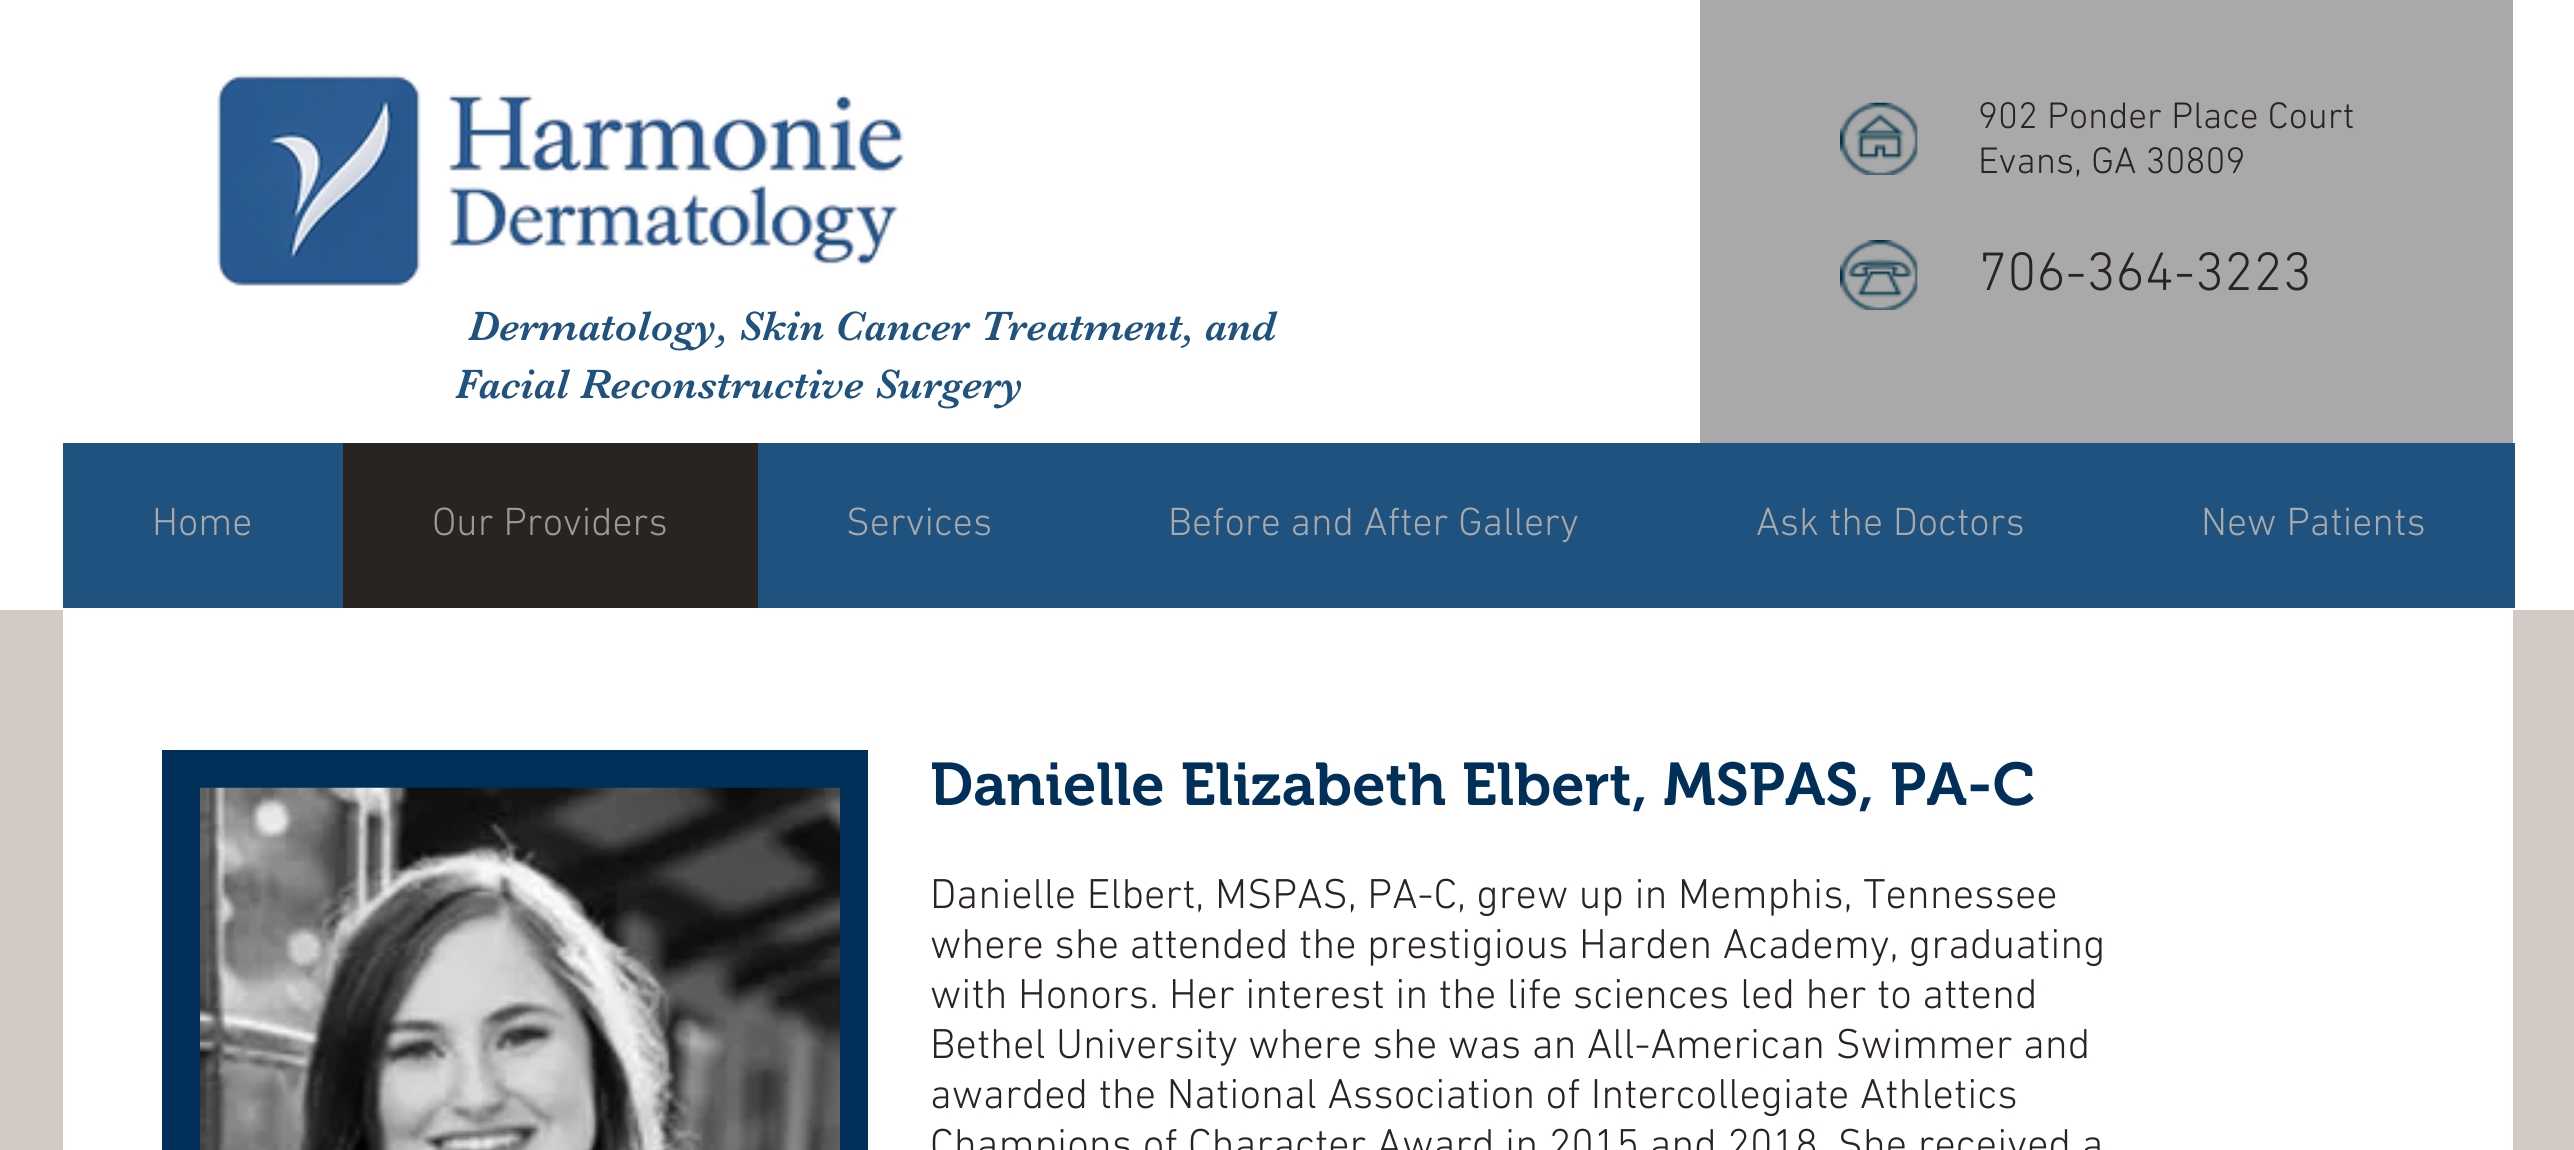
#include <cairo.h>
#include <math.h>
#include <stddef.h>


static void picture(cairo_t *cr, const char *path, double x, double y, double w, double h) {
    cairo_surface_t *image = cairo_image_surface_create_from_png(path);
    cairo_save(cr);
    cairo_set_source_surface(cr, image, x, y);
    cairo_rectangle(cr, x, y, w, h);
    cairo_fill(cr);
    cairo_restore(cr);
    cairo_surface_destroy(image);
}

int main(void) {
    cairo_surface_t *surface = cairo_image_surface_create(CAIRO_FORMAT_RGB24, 2574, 1150);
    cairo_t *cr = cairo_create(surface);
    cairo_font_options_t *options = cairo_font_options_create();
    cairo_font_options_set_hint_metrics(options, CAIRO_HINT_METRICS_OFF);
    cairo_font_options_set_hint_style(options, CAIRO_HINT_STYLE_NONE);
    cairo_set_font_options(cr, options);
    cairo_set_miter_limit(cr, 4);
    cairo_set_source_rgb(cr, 0.831, 0.792, 0.773);
    cairo_paint(cr);
    cairo_set_source_rgb(cr, 1, 1, 1);
    cairo_rectangle(cr, 0, 0, 2574, 610);
    cairo_fill(cr);
    picture(cr, "img1.png", 217, 74, 687, 212);
    cairo_set_source_rgb(cr, 0.663, 0.663, 0.663);
    cairo_rectangle(cr, 1700, 0, 813, 443);
    cairo_fill(cr);
    picture(cr, "img2.png", 1840, 102, 78, 73);
    cairo_select_font_face(cr, "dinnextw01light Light", CAIRO_FONT_SLANT_NORMAL, CAIRO_FONT_WEIGHT_NORMAL);
    cairo_set_font_size(cr, 37.5);
    cairo_set_source_rgb(cr, 0.165, 0.141, 0.129);
    cairo_move_to(cr, 1978, 128);
    cairo_show_text(cr, "902 Ponder Place Court");
    cairo_move_to(cr, 1978, 173);
    cairo_show_text(cr, "Evans, GA 30809");
    picture(cr, "img3.png", 1840, 240, 78, 70);
    cairo_set_font_size(cr, 55);
    cairo_move_to(cr, 1978, 290);
    cairo_show_text(cr, "706-364-3223");
    cairo_select_font_face(cr, "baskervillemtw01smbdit", CAIRO_FONT_SLANT_NORMAL, CAIRO_FONT_WEIGHT_NORMAL);
    cairo_set_font_size(cr, 42.5);
    cairo_set_source_rgb(cr, 0.122, 0.322, 0.498);
    cairo_move_to(cr, 468, 340);
    cairo_show_text(cr, "Dermatology, Skin Cancer Treatment, and");
    cairo_move_to(cr, 455, 398);
    cairo_show_text(cr, "Facial Reconstructive Surgery");
    cairo_rectangle(cr, 63, 443, 280, 165);
    cairo_fill(cr);
    cairo_select_font_face(cr, "dinnextw01light Light", CAIRO_FONT_SLANT_NORMAL, CAIRO_FONT_WEIGHT_NORMAL);
    cairo_set_font_size(cr, 40);
    cairo_set_source_rgb(cr, 0.663, 0.663, 0.663);
    cairo_move_to(cr, 152, 535);
    cairo_show_text(cr, "Home");
    cairo_set_source_rgb(cr, 0.165, 0.141, 0.129);
    cairo_rectangle(cr, 343, 443, 415, 165);
    cairo_fill(cr);
    cairo_set_source_rgb(cr, 0.6, 0.6, 0.6);
    cairo_move_to(cr, 432, 535);
    cairo_show_text(cr, "Our Providers");
    cairo_set_source_rgb(cr, 0.122, 0.322, 0.498);
    cairo_rectangle(cr, 758, 443, 1757, 165);
    cairo_fill(cr);
    cairo_set_source_rgb(cr, 0.663, 0.663, 0.663);
    cairo_move_to(cr, 846, 535);
    cairo_show_text(cr, "Services");
    cairo_move_to(cr, 1168, 535);
    cairo_show_text(cr, "Before and After Gallery");
    cairo_move_to(cr, 1756, 535);
    cairo_show_text(cr, "Ask the Doctors");
    cairo_move_to(cr, 2201, 535);
    cairo_show_text(cr, "New Patients");
    cairo_set_source_rgb(cr, 1, 1, 1);
    cairo_rectangle(cr, 63, 610, 2450, 540);
    cairo_fill(cr);
    cairo_set_source_rgb(cr, 0, 0.184, 0.349);
    cairo_rectangle(cr, 162, 750, 706, 400);
    cairo_fill(cr);
    cairo_select_font_face(cr, "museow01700 SemiBold", CAIRO_FONT_SLANT_NORMAL, CAIRO_FONT_WEIGHT_NORMAL);
    cairo_set_font_size(cr, 60);
    cairo_move_to(cr, 930, 805);
    cairo_show_text(cr, "Danielle Elizabeth Elbert, MSPAS, PA-C");
    picture(cr, "img4.png", 200, 787, 640, 363);
    cairo_select_font_face(cr, "dinnextw01light Light", CAIRO_FONT_SLANT_NORMAL, CAIRO_FONT_WEIGHT_NORMAL);
    cairo_set_font_size(cr, 42.5);
    cairo_set_source_rgb(cr, 0.165, 0.141, 0.129);
    cairo_move_to(cr, 930, 908);
    cairo_show_text(cr, "Danielle Elbert, MSPAS, PA-C, grew up in Memphis, Tennessee");
    cairo_move_to(cr, 930, 958);
    cairo_show_text(cr, "where she attended the prestigious Harden Academy, graduating");
    cairo_move_to(cr, 930, 1008);
    cairo_show_text(cr, "with Honors. Her interest in the life sciences led her to attend");
    cairo_move_to(cr, 930, 1058);
    cairo_show_text(cr, "Bethel University where she was an All-American Swimmer and");
    cairo_move_to(cr, 930, 1108);
    cairo_show_text(cr, "awarded the National Association of Intercollegiate Athletics");
    cairo_move_to(cr, 930, 1158);
    cairo_show_text(cr, "Champions of Character Award in 2015 and 2018. She received a");
    cairo_surface_write_to_png(surface, "page.png");
    cairo_font_options_destroy(options);
    cairo_destroy(cr);
    cairo_surface_destroy(surface);
    return 0;
}
